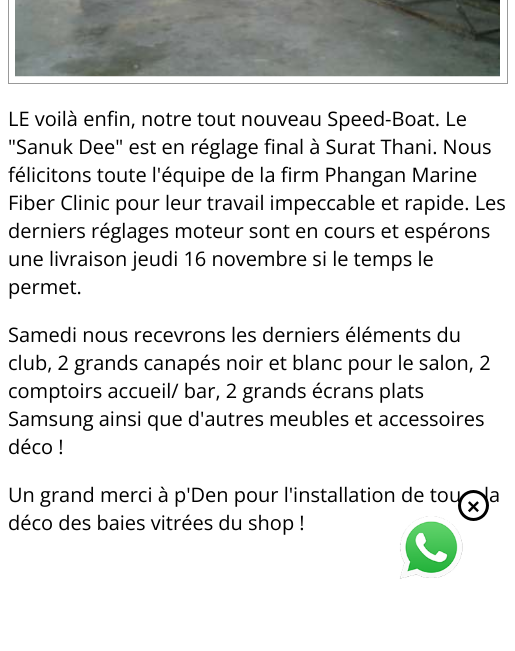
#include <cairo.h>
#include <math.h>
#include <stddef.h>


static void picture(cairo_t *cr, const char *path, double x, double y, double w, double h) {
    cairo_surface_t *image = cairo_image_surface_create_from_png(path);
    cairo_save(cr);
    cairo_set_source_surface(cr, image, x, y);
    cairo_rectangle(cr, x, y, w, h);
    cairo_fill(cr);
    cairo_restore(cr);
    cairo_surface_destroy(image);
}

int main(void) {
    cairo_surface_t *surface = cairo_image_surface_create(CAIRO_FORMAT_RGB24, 515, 651);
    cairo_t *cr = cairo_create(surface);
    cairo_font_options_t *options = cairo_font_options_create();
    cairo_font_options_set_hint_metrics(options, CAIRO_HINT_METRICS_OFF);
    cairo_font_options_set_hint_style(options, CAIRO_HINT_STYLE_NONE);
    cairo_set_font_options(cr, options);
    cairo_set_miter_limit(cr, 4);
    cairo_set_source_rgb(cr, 1, 1, 1);
    cairo_paint(cr);
    cairo_rectangle(cr, 8.5, -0.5, 499, 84);
    cairo_set_source_rgb(cr, 0.6, 0.6, 0.6);
    cairo_set_line_width(cr, 1);
    cairo_stroke(cr);
    picture(cr, "img1.png", 15, 0, 485, 77);
    cairo_select_font_face(cr, "Open Sans", CAIRO_FONT_SLANT_NORMAL, CAIRO_FONT_WEIGHT_NORMAL);
    cairo_set_font_size(cr, 20);
    cairo_set_source_rgb(cr, 0, 0, 0);
    cairo_move_to(cr, 8, 126);
    cairo_show_text(cr, "LE voilà enfin, notre tout nouveau Speed-Boat. Le");
    cairo_move_to(cr, 8, 154);
    cairo_show_text(cr, "\"Sanuk Dee\" est en réglage final à Surat Thani. Nous");
    cairo_move_to(cr, 8, 182);
    cairo_show_text(cr, "félicitons toute l'équipe de la firm Phangan Marine");
    cairo_move_to(cr, 8, 210);
    cairo_show_text(cr, "Fiber Clinic pour leur travail impeccable et rapide. Les");
    cairo_move_to(cr, 8, 238);
    cairo_show_text(cr, "derniers réglages moteur sont en cours et espérons");
    cairo_move_to(cr, 8, 266);
    cairo_show_text(cr, "une livraison jeudi 16 novembre si le temps le");
    cairo_move_to(cr, 8, 294);
    cairo_show_text(cr, "permet.");
    cairo_move_to(cr, 8, 342);
    cairo_show_text(cr, "Samedi nous recevrons les derniers éléments du");
    cairo_move_to(cr, 8, 370);
    cairo_show_text(cr, "club, 2 grands canapés noir et blanc pour le salon, 2");
    cairo_move_to(cr, 8, 398);
    cairo_show_text(cr, "comptoirs accueil/ bar, 2 grands écrans plats");
    cairo_move_to(cr, 8, 426);
    cairo_show_text(cr, "Samsung ainsi que d'autres meubles et accessoires");
    cairo_move_to(cr, 8, 454);
    cairo_show_text(cr, "déco !");
    cairo_move_to(cr, 8, 502);
    cairo_show_text(cr, "Un grand merci à p'Den pour l'installation de tou");
    cairo_move_to(cr, 484, 502);
    cairo_show_text(cr, "la");
    cairo_move_to(cr, 8, 530);
    cairo_show_text(cr, "déco des baies vitrées du shop !");
    picture(cr, "img2.png", 399, 516, 64, 63);
    cairo_set_source_rgb(cr, 1, 1, 1);
    cairo_arc(cr, 473.5, 505.5, 14, 0, 2 * M_PI);
    cairo_fill_preserve(cr);
    cairo_set_source_rgb(cr, 0, 0, 0);
    cairo_set_line_width(cr, 3);
    cairo_stroke(cr);
    cairo_select_font_face(cr, "Liberation Sans", CAIRO_FONT_SLANT_NORMAL, CAIRO_FONT_WEIGHT_BOLD);
    cairo_set_font_size(cr, 22);
    cairo_move_to(cr, 467, 514);
    cairo_show_text(cr, "×");
    cairo_surface_write_to_png(surface, "page.png");
    cairo_font_options_destroy(options);
    cairo_destroy(cr);
    cairo_surface_destroy(surface);
    return 0;
}
